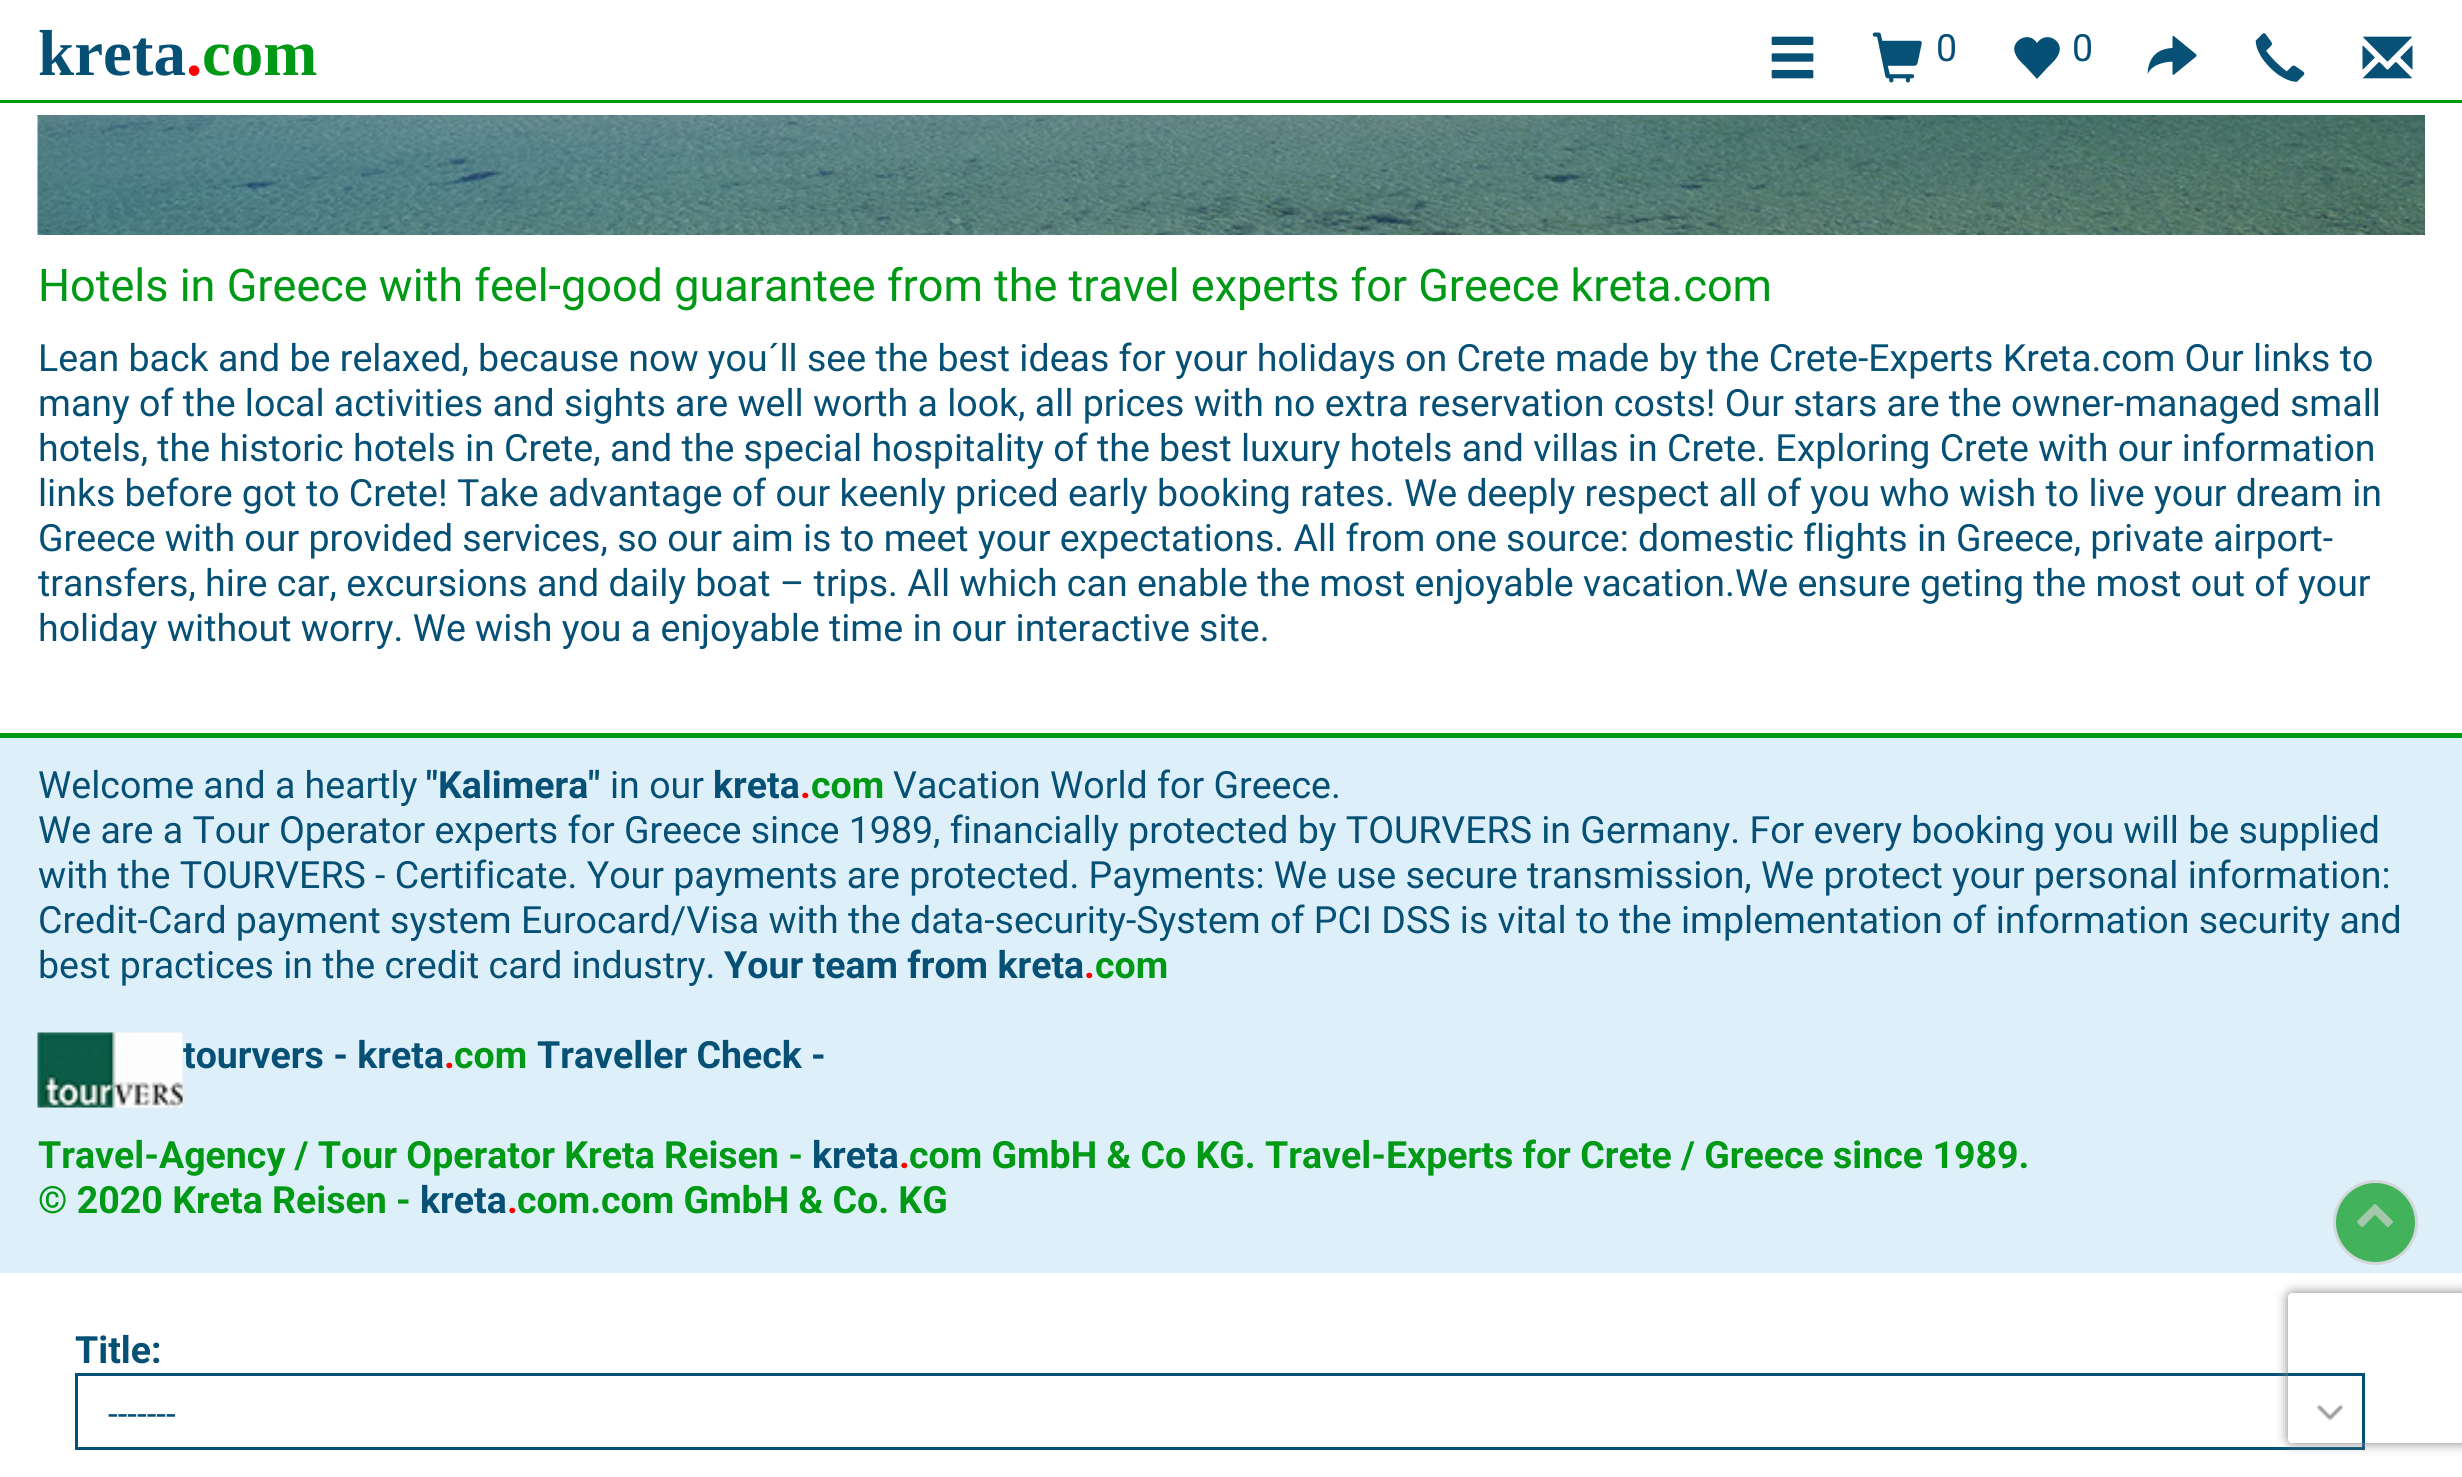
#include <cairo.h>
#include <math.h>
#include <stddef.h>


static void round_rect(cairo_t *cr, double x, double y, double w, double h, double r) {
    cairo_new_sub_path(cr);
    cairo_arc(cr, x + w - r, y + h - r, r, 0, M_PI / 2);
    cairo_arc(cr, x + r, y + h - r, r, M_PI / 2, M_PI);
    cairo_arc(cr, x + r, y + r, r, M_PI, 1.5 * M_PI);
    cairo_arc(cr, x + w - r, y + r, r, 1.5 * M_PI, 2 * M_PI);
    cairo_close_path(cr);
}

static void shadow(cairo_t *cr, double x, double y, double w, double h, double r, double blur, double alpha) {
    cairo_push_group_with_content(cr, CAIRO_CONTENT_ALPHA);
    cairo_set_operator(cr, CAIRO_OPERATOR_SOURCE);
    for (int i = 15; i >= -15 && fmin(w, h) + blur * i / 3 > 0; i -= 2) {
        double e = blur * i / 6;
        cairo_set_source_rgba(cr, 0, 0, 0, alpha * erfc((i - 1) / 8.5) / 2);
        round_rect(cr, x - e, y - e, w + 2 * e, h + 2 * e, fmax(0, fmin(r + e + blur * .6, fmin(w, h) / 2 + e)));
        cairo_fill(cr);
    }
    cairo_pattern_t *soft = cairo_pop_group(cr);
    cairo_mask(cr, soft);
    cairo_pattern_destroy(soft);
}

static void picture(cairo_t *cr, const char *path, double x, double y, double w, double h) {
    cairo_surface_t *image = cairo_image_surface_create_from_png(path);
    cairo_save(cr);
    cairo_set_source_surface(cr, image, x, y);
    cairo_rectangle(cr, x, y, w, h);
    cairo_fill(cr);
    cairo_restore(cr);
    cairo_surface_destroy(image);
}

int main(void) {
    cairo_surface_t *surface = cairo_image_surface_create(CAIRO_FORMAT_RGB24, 2462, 1477);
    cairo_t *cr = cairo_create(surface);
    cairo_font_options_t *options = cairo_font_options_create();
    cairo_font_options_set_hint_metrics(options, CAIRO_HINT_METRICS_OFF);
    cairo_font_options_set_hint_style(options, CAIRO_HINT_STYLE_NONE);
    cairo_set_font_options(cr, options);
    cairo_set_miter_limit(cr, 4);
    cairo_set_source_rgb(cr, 1, 1, 1);
    cairo_paint(cr);
    cairo_set_source_rgb(cr, 0, 0.6, 0.086);
    cairo_rectangle(cr, 0, 100, 2462, 3);
    cairo_fill(cr);
    cairo_select_font_face(cr, "Liberation Serif", CAIRO_FONT_SLANT_NORMAL, CAIRO_FONT_WEIGHT_BOLD);
    cairo_set_font_size(cr, 65);
    cairo_set_source_rgb(cr, 0.027, 0.314, 0.463);
    cairo_move_to(cr, 38, 75);
    cairo_show_text(cr, "kreta");
    cairo_set_source_rgb(cr, 1, 0, 0);
    cairo_move_to(cr, 186, 75);
    cairo_show_text(cr, ".");
    cairo_set_source_rgb(cr, 0, 0.6, 0.086);
    cairo_move_to(cr, 202, 75);
    cairo_show_text(cr, "com");
    picture(cr, "img1.png", 1771, 36, 43, 43);
    picture(cr, "img2.png", 1872, 32, 50, 51);
    cairo_select_font_face(cr, "Roboto", CAIRO_FONT_SLANT_NORMAL, CAIRO_FONT_WEIGHT_NORMAL);
    cairo_set_font_size(cr, 37.5);
    cairo_set_source_rgb(cr, 0.027, 0.314, 0.463);
    cairo_move_to(cr, 1936, 61);
    cairo_show_text(cr, "0");
    cairo_new_path(cr);
    cairo_move_to(cr, 2037, 43);
    cairo_curve_to(cr, 2046, 30, 2064, 41, 2059, 53);
    cairo_curve_to(cr, 2057, 59, 2052, 63, 2048, 67);
    cairo_line_to(cr, 2037, 79);
    cairo_line_to(cr, 2026, 67);
    cairo_curve_to(cr, 2022, 63, 2017, 59, 2015, 53);
    cairo_curve_to(cr, 2010, 41, 2029, 30, 2037, 43);
    cairo_close_path(cr);
    cairo_fill(cr);
    cairo_move_to(cr, 2072, 61);
    cairo_show_text(cr, "0");
    picture(cr, "img3.png", 2147, 35, 50, 40);
    picture(cr, "img4.png", 2255, 33, 50, 49);
    picture(cr, "img5.png", 2362, 36, 51, 43);
    picture(cr, "img6.png", 37, 115, 2388, 120);
    cairo_set_font_size(cr, 45);
    cairo_set_source_rgb(cr, 0, 0.6, 0.086);
    cairo_move_to(cr, 38, 301);
    cairo_show_text(cr, "Hotels in Greece with feel-good guarantee from the travel experts for Greece kreta.com");
    cairo_set_font_size(cr, 37.5);
    cairo_set_source_rgb(cr, 0.027, 0.314, 0.463);
    cairo_move_to(cr, 38, 371);
    cairo_show_text(cr, "Lean back and be relaxed, because now you´ll see the best ideas for your holidays on Crete made by the Crete-Experts Kreta.com Our links to");
    cairo_move_to(cr, 38, 416);
    cairo_show_text(cr, "many of the local activities and sights are well worth a look, all prices with no extra reservation costs! Our stars are the owner-managed small");
    cairo_move_to(cr, 38, 461);
    cairo_show_text(cr, "hotels, the historic hotels in Crete, and the special hospitality of the best luxury hotels and villas in Crete. Exploring Crete with our information");
    cairo_move_to(cr, 38, 506);
    cairo_show_text(cr, "links before got to Crete! Take advantage of our keenly priced early booking rates. We deeply respect all of you who wish to live your dream in");
    cairo_move_to(cr, 38, 551);
    cairo_show_text(cr, "Greece with our provided services, so our aim is to meet your expectations. All from one source: domestic flights in Greece, private airport-");
    cairo_save(cr);
    cairo_rectangle(cr, 38, 335, 2387, 360);
    cairo_clip(cr);
    cairo_move_to(cr, 38, 596);
    cairo_show_text(cr, "transfers, hire car, excursions and daily boat – trips. All which can enable the most enjoyable vacation.We ensure geting the most out of your");
    cairo_restore(cr);
    cairo_move_to(cr, 38, 641);
    cairo_show_text(cr, "holiday without worry. We wish you a enjoyable time in our interactive site.");
    cairo_set_source_rgb(cr, 0.867, 0.937, 0.976);
    cairo_rectangle(cr, 0, 738, 2462, 535);
    cairo_fill(cr);
    cairo_set_source_rgb(cr, 0, 0.6, 0.086);
    cairo_rectangle(cr, 0, 733, 2462, 5);
    cairo_fill(cr);
    cairo_set_source_rgb(cr, 0.027, 0.314, 0.463);
    cairo_move_to(cr, 38, 798);
    cairo_show_text(cr, "Welcome and a heartly");
    cairo_select_font_face(cr, "Roboto", CAIRO_FONT_SLANT_NORMAL, CAIRO_FONT_WEIGHT_BOLD);
    cairo_move_to(cr, 426, 798);
    cairo_show_text(cr, "\"Kalimera\"");
    cairo_select_font_face(cr, "Roboto", CAIRO_FONT_SLANT_NORMAL, CAIRO_FONT_WEIGHT_NORMAL);
    cairo_move_to(cr, 610, 798);
    cairo_show_text(cr, "in our");
    cairo_select_font_face(cr, "Roboto", CAIRO_FONT_SLANT_NORMAL, CAIRO_FONT_WEIGHT_BOLD);
    cairo_move_to(cr, 713, 798);
    cairo_show_text(cr, "kreta");
    cairo_set_source_rgb(cr, 1, 0, 0);
    cairo_move_to(cr, 800, 798);
    cairo_show_text(cr, ".");
    cairo_set_source_rgb(cr, 0, 0.6, 0.086);
    cairo_move_to(cr, 811, 798);
    cairo_show_text(cr, "com");
    cairo_select_font_face(cr, "Roboto", CAIRO_FONT_SLANT_NORMAL, CAIRO_FONT_WEIGHT_NORMAL);
    cairo_set_source_rgb(cr, 0.027, 0.314, 0.463);
    cairo_move_to(cr, 893, 798);
    cairo_show_text(cr, "Vacation World for Greece.");
    cairo_move_to(cr, 38, 843);
    cairo_show_text(cr, "We are a Tour Operator experts for Greece since 1989, financially protected by TOURVERS in Germany. For every booking you will be supplied");
    cairo_move_to(cr, 38, 888);
    cairo_show_text(cr, "with the TOURVERS - Certificate. Your payments are protected. Payments: We use secure transmission, We protect your personal information:");
    cairo_move_to(cr, 38, 933);
    cairo_show_text(cr, "Credit-Card payment system Eurocard/Visa with the data-security-System of PCI DSS is vital to the implementation of information security and");
    cairo_move_to(cr, 38, 978);
    cairo_show_text(cr, "best practices in the credit card industry.");
    cairo_select_font_face(cr, "Roboto", CAIRO_FONT_SLANT_NORMAL, CAIRO_FONT_WEIGHT_BOLD);
    cairo_move_to(cr, 724, 978);
    cairo_show_text(cr, "Your team from kreta");
    cairo_set_source_rgb(cr, 1, 0, 0);
    cairo_move_to(cr, 1084, 978);
    cairo_show_text(cr, ".");
    cairo_set_source_rgb(cr, 0, 0.6, 0.086);
    cairo_move_to(cr, 1095, 978);
    cairo_show_text(cr, "com");
    picture(cr, "img7.png", 37, 1032, 146, 76);
    cairo_set_source_rgb(cr, 0.027, 0.314, 0.463);
    cairo_move_to(cr, 183, 1068);
    cairo_show_text(cr, "tourvers - kreta");
    cairo_set_source_rgb(cr, 1, 0, 0);
    cairo_move_to(cr, 444, 1068);
    cairo_show_text(cr, ".");
    cairo_set_source_rgb(cr, 0, 0.6, 0.086);
    cairo_move_to(cr, 454, 1068);
    cairo_show_text(cr, "com");
    cairo_set_source_rgb(cr, 0.027, 0.314, 0.463);
    cairo_move_to(cr, 537, 1068);
    cairo_show_text(cr, "Traveller Check -");
    cairo_set_source_rgb(cr, 0, 0.6, 0.086);
    cairo_move_to(cr, 38, 1168);
    cairo_show_text(cr, "Travel-Agency / Tour Operator Kreta Reisen -");
    cairo_set_source_rgb(cr, 0.027, 0.314, 0.463);
    cairo_move_to(cr, 812, 1168);
    cairo_show_text(cr, "kreta");
    cairo_set_source_rgb(cr, 1, 0, 0);
    cairo_move_to(cr, 899, 1168);
    cairo_show_text(cr, ".");
    cairo_set_source_rgb(cr, 0, 0.6, 0.086);
    cairo_move_to(cr, 909, 1168);
    cairo_show_text(cr, "com GmbH & Co KG. Travel-Experts for Crete / Greece since 1989.");
    cairo_move_to(cr, 38, 1213);
    cairo_show_text(cr, "© 2020 Kreta Reisen -");
    cairo_set_source_rgb(cr, 0.027, 0.314, 0.463);
    cairo_move_to(cr, 420, 1213);
    cairo_show_text(cr, "kreta");
    cairo_set_source_rgb(cr, 1, 0, 0);
    cairo_move_to(cr, 507, 1213);
    cairo_show_text(cr, ".");
    cairo_set_source_rgb(cr, 0, 0.6, 0.086);
    cairo_move_to(cr, 517, 1213);
    cairo_show_text(cr, "com.com GmbH & Co. KG");
    cairo_set_source_rgb(cr, 0.027, 0.314, 0.463);
    cairo_move_to(cr, 75, 1363);
    cairo_show_text(cr, "Title:");
    picture(cr, "img8.png", 2317, 1404, 26, 17);
    cairo_rectangle(cr, 76.5, 1374.5, 2287, 74);
    cairo_set_line_width(cr, 3);
    cairo_stroke(cr);
    cairo_select_font_face(cr, "Roboto", CAIRO_FONT_SLANT_NORMAL, CAIRO_FONT_WEIGHT_NORMAL);
    cairo_set_font_size(cr, 35);
    cairo_move_to(cr, 108, 1426);
    cairo_show_text(cr, "-------");
    cairo_set_source_rgb(cr, 0.259, 0.702, 0.353);
    cairo_new_path(cr);
    cairo_arc(cr, 2375.5, 1222.5, 41, 0, 2 * M_PI);
    cairo_fill_preserve(cr);
    cairo_set_source_rgb(cr, 0.82, 0.843, 0.855);
    cairo_stroke(cr);
    picture(cr, "img9.png", 2357, 1204, 36, 23);
    cairo_save(cr);
    cairo_set_fill_rule(cr, CAIRO_FILL_RULE_EVEN_ODD);
    cairo_new_path(cr);
    cairo_move_to(cr, 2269, 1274);
    cairo_line_to(cr, 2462, 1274);
    cairo_line_to(cr, 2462, 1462);
    cairo_line_to(cr, 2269, 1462);
    cairo_close_path(cr);
    cairo_move_to(cr, 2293, 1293);
    cairo_line_to(cr, 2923, 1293);
    cairo_curve_to(cr, 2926, 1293, 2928, 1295, 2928, 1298);
    cairo_line_to(cr, 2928, 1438);
    cairo_curve_to(cr, 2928, 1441, 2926, 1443, 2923, 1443);
    cairo_line_to(cr, 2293, 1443);
    cairo_curve_to(cr, 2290, 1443, 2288, 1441, 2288, 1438);
    cairo_line_to(cr, 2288, 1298);
    cairo_curve_to(cr, 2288, 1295, 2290, 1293, 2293, 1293);
    cairo_close_path(cr);
    cairo_clip(cr);
    cairo_set_source_rgb(cr, 0.502, 0.502, 0.502);
    shadow(cr, 2288, 1293, 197, 150, 5, 6, 1);
    cairo_restore(cr);
    cairo_surface_write_to_png(surface, "page.png");
    cairo_font_options_destroy(options);
    cairo_destroy(cr);
    cairo_surface_destroy(surface);
    return 0;
}
